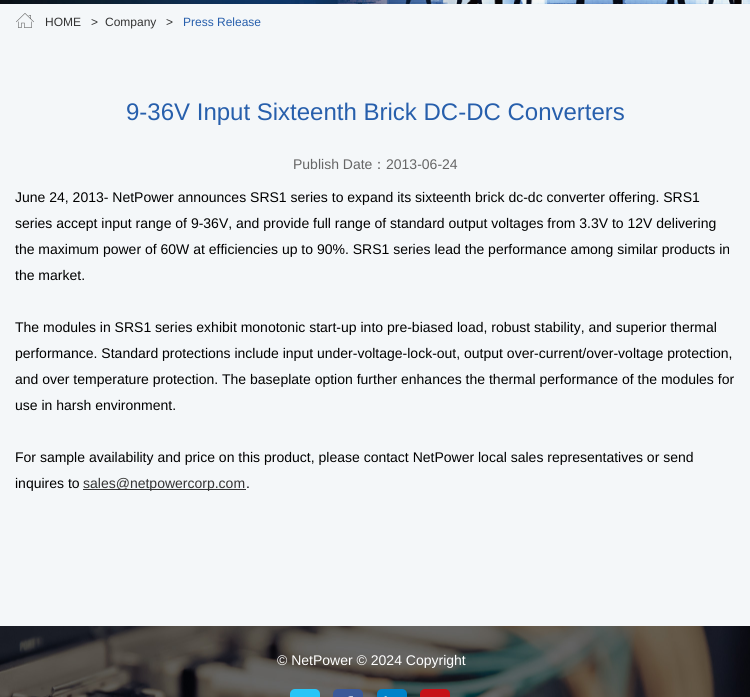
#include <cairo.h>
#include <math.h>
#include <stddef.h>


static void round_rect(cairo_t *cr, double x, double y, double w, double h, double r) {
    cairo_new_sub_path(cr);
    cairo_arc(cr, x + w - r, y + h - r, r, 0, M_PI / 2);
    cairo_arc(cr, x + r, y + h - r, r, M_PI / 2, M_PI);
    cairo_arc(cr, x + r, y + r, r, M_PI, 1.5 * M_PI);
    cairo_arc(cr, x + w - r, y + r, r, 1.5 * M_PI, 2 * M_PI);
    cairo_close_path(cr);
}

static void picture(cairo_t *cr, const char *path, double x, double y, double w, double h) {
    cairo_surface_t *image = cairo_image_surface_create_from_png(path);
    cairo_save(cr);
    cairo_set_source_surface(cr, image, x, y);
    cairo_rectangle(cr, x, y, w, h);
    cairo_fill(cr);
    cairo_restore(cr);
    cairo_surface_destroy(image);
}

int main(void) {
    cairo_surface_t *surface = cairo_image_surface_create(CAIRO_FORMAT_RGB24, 750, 697);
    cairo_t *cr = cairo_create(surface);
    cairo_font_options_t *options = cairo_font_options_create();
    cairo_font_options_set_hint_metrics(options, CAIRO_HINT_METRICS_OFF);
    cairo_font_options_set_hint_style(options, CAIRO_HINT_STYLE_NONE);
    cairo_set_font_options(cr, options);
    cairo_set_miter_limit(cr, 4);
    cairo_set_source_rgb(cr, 0.957, 0.965, 0.976);
    cairo_paint(cr);
    picture(cr, "img1.png", 0, 0, 750, 4);
    picture(cr, "img2.png", 16, 13, 18, 15);
    cairo_select_font_face(cr, "Liberation Sans", CAIRO_FONT_SLANT_NORMAL, CAIRO_FONT_WEIGHT_NORMAL);
    cairo_set_font_size(cr, 12);
    cairo_set_source_rgb(cr, 0.2, 0.2, 0.2);
    cairo_move_to(cr, 45, 26);
    cairo_show_text(cr, "HOME");
    cairo_move_to(cr, 91, 26);
    cairo_show_text(cr, ">");
    cairo_move_to(cr, 105, 26);
    cairo_show_text(cr, "Company");
    cairo_move_to(cr, 166, 26);
    cairo_show_text(cr, ">");
    cairo_set_source_rgb(cr, 0.153, 0.373, 0.675);
    cairo_move_to(cr, 183, 26);
    cairo_show_text(cr, "Press Release");
    cairo_set_font_size(cr, 24);
    cairo_move_to(cr, 126, 120);
    cairo_show_text(cr, "9-36V Input Sixteenth Brick DC-DC Converters");
    cairo_set_font_size(cr, 14);
    cairo_set_source_rgb(cr, 0.4, 0.4, 0.4);
    cairo_move_to(cr, 293, 169);
    cairo_show_text(cr, "Publish Date");
    cairo_select_font_face(cr, "WenQuanYi Zen Hei Medium", CAIRO_FONT_SLANT_NORMAL, CAIRO_FONT_WEIGHT_NORMAL);
    cairo_move_to(cr, 372, 169);
    cairo_show_text(cr, "：");
    cairo_select_font_face(cr, "Liberation Sans", CAIRO_FONT_SLANT_NORMAL, CAIRO_FONT_WEIGHT_NORMAL);
    cairo_move_to(cr, 386, 169);
    cairo_show_text(cr, "2013-06-24");
    cairo_set_source_rgb(cr, 0, 0, 0);
    cairo_move_to(cr, 15, 202);
    cairo_show_text(cr, "June 24, 2013- NetPower announces SRS1 series to expand its sixteenth brick dc-dc converter offering. SRS1");
    cairo_move_to(cr, 15, 228);
    cairo_show_text(cr, "series accept input range of 9-36V, and provide full range of standard output voltages from 3.3V to 12V delivering");
    cairo_move_to(cr, 15, 254);
    cairo_show_text(cr, "the maximum power of 60W at efficiencies up to 90%. SRS1 series lead the performance among similar products in");
    cairo_move_to(cr, 15, 280);
    cairo_show_text(cr, "the market.");
    cairo_move_to(cr, 15, 332);
    cairo_show_text(cr, "The modules in SRS1 series exhibit monotonic start-up into pre-biased load, robust stability, and superior thermal");
    cairo_move_to(cr, 15, 358);
    cairo_show_text(cr, "performance. Standard protections include input under-voltage-lock-out, output over-current/over-voltage protection,");
    cairo_move_to(cr, 15, 384);
    cairo_show_text(cr, "and over temperature protection. The baseplate option further enhances the thermal performance of the modules for");
    cairo_move_to(cr, 15, 410);
    cairo_show_text(cr, "use in harsh environment.");
    cairo_move_to(cr, 15, 462);
    cairo_show_text(cr, "For sample availability and price on this product, please contact NetPower local sales representatives or send");
    cairo_move_to(cr, 15, 488);
    cairo_show_text(cr, "inquires to");
    cairo_set_source_rgb(cr, 0.2, 0.2, 0.2);
    cairo_rectangle(cr, 83, 489, 163, 1);
    cairo_fill(cr);
    cairo_move_to(cr, 83, 488);
    cairo_show_text(cr, "sales@netpowercorp.com");
    cairo_set_source_rgb(cr, 0, 0, 0);
    cairo_move_to(cr, 246, 488);
    cairo_show_text(cr, ".");
    picture(cr, "img3.png", 0, 626, 750, 71);
    cairo_set_source_rgb(cr, 1, 1, 1);
    cairo_move_to(cr, 277, 665);
    cairo_show_text(cr, "© NetPower © 2024 Copyright");
    cairo_set_source_rgb(cr, 0.161, 0.773, 0.965);
    round_rect(cr, 290, 689, 30, 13, 5);
    cairo_fill(cr);
    cairo_set_source_rgb(cr, 0.231, 0.349, 0.596);
    round_rect(cr, 333, 689, 30, 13, 5);
    cairo_fill(cr);
    picture(cr, "img4.png", 348, 696, 5, 1);
    cairo_set_source_rgb(cr, 0, 0.51, 0.788);
    round_rect(cr, 377, 689, 30, 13, 5);
    cairo_fill(cr);
    picture(cr, "img5.png", 384, 696, 3, 1);
    cairo_set_source_rgb(cr, 0.776, 0.067, 0.094);
    round_rect(cr, 420, 689, 30, 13, 5);
    cairo_fill(cr);
    cairo_surface_write_to_png(surface, "page.png");
    cairo_font_options_destroy(options);
    cairo_destroy(cr);
    cairo_surface_destroy(surface);
    return 0;
}
